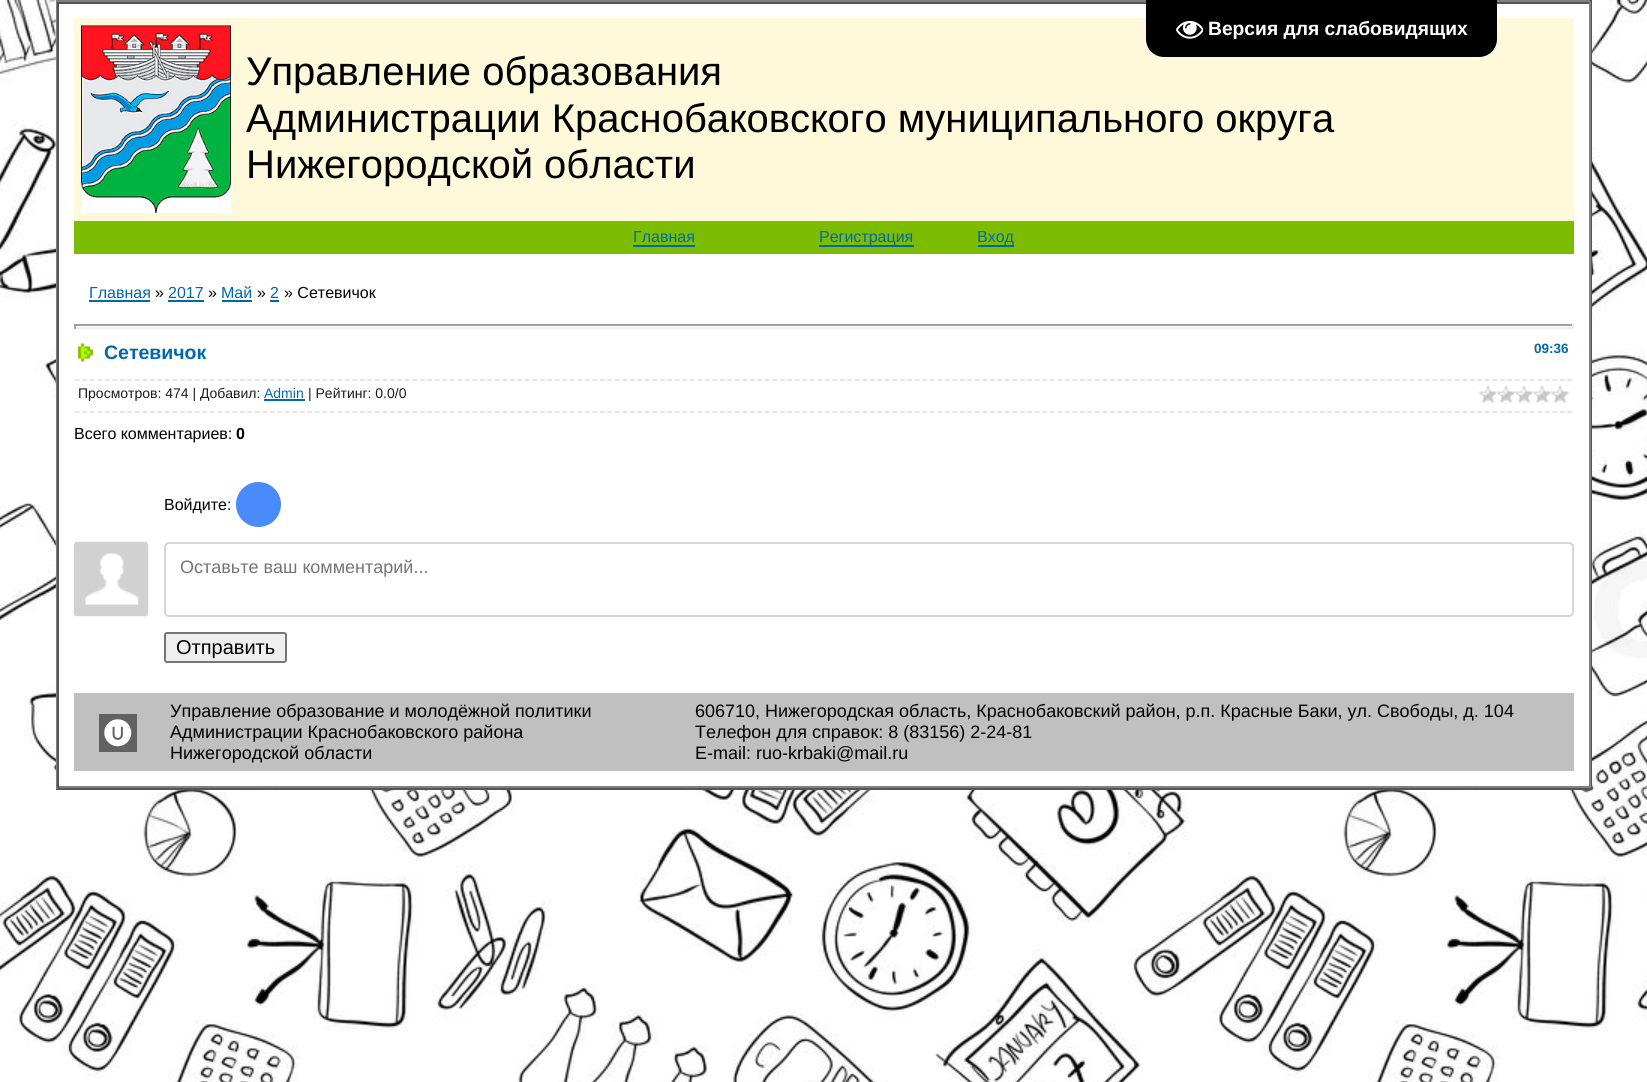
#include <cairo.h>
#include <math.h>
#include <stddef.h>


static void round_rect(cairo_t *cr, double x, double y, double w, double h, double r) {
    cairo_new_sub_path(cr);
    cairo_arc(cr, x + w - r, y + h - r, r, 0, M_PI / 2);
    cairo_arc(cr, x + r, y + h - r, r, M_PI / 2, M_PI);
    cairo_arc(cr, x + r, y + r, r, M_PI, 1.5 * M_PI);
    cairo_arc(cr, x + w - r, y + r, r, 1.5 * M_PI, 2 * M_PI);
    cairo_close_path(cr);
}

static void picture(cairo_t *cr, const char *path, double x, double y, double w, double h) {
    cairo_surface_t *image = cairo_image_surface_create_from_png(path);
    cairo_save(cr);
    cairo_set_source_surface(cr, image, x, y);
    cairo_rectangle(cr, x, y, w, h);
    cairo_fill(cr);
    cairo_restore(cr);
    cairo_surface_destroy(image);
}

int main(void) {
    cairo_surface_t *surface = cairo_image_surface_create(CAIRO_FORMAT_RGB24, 1647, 1082);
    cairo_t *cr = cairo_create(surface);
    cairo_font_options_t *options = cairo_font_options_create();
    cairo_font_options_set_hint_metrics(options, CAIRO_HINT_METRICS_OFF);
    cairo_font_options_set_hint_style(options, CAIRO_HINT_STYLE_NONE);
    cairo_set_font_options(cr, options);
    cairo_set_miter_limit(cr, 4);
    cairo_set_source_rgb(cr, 1, 1, 1);
    cairo_paint(cr);
    picture(cr, "img1.png", 0, 0, 1647, 1082);
    cairo_set_source_rgb(cr, 1, 1, 1);
    cairo_rectangle(cr, 59, 4, 1530, 782);
    cairo_fill(cr);
    cairo_set_source_rgb(cr, 0.502, 0.502, 0.502);
    cairo_rectangle(cr, 56, 0, 1536, 2);
    cairo_fill(cr);
    cairo_set_source_rgb(cr, 0.333, 0.333, 0.333);
    cairo_rectangle(cr, 1590, 0, 2, 789);
    cairo_fill(cr);
    cairo_rectangle(cr, 56, 788, 1536, 2);
    cairo_fill(cr);
    cairo_set_source_rgb(cr, 0.502, 0.502, 0.502);
    cairo_rectangle(cr, 56, 0, 2, 789);
    cairo_fill(cr);
    cairo_set_source_rgb(cr, 0.333, 0.333, 0.333);
    cairo_rectangle(cr, 57, 2, 1533, 2);
    cairo_fill(cr);
    cairo_set_source_rgb(cr, 1, 0.973, 0.863);
    cairo_rectangle(cr, 74, 18, 1500, 203);
    cairo_fill(cr);
    cairo_set_source_rgb(cr, 0, 0, 0);
    cairo_new_path(cr);
    cairo_move_to(cr, 1146, 0);
    cairo_line_to(cr, 1497, 0);
    cairo_line_to(cr, 1497, 39);
    cairo_curve_to(cr, 1497, 49, 1489, 57, 1479, 57);
    cairo_line_to(cr, 1164, 57);
    cairo_curve_to(cr, 1154, 57, 1146, 49, 1146, 39);
    cairo_close_path(cr);
    cairo_fill(cr);
    picture(cr, "img2.png", 1176, 20, 27, 19);
    cairo_select_font_face(cr, "Liberation Sans", CAIRO_FONT_SLANT_NORMAL, CAIRO_FONT_WEIGHT_BOLD);
    cairo_set_font_size(cr, 19.25);
    cairo_set_source_rgb(cr, 1, 1, 1);
    cairo_move_to(cr, 1208, 35);
    cairo_show_text(cr, "Версия для слабовидящих");
    cairo_set_source_rgb(cr, 0.502, 0.502, 0.502);
    cairo_rectangle(cr, 1589, 2, 2, 786);
    cairo_fill(cr);
    cairo_rectangle(cr, 57, 786, 1533, 2);
    cairo_fill(cr);
    cairo_set_source_rgb(cr, 0.333, 0.333, 0.333);
    cairo_rectangle(cr, 57, 2, 2, 786);
    cairo_fill(cr);
    picture(cr, "img3.png", 81, 25, 150, 188);
    cairo_select_font_face(cr, "Liberation Sans", CAIRO_FONT_SLANT_NORMAL, CAIRO_FONT_WEIGHT_NORMAL);
    cairo_set_font_size(cr, 40);
    cairo_set_source_rgb(cr, 0, 0, 0);
    cairo_move_to(cr, 246, 85);
    cairo_show_text(cr, "Управление образования");
    cairo_move_to(cr, 246, 132);
    cairo_show_text(cr, "Администрации Краснобаковского муниципального округа");
    cairo_move_to(cr, 246, 178);
    cairo_show_text(cr, "Нижегородской области");
    cairo_set_source_rgb(cr, 0.486, 0.741, 0.004);
    cairo_rectangle(cr, 74, 221, 1500, 33);
    cairo_fill(cr);
    cairo_set_font_size(cr, 16);
    cairo_set_source_rgb(cr, 0, 0.412, 0.663);
    cairo_move_to(cr, 633, 242);
    cairo_show_text(cr, "Главная");
    cairo_rectangle(cr, 633, 245, 62, 2);
    cairo_fill(cr);
    cairo_rectangle(cr, 819, 245, 95, 2);
    cairo_fill(cr);
    cairo_move_to(cr, 819, 242);
    cairo_show_text(cr, "Регистрация");
    cairo_rectangle(cr, 978, 245, 36, 2);
    cairo_fill(cr);
    cairo_move_to(cr, 977, 242);
    cairo_show_text(cr, "Вход");
    cairo_move_to(cr, 89, 298);
    cairo_show_text(cr, "Главная");
    cairo_rectangle(cr, 89, 300, 61, 2);
    cairo_fill(cr);
    cairo_set_source_rgb(cr, 0, 0, 0);
    cairo_move_to(cr, 155, 298);
    cairo_show_text(cr, "»");
    cairo_set_source_rgb(cr, 0, 0.412, 0.663);
    cairo_move_to(cr, 168, 298);
    cairo_show_text(cr, "2017");
    cairo_rectangle(cr, 168, 300, 36, 2);
    cairo_fill(cr);
    cairo_set_source_rgb(cr, 0, 0, 0);
    cairo_move_to(cr, 208, 298);
    cairo_show_text(cr, "»");
    cairo_set_source_rgb(cr, 0, 0.412, 0.663);
    cairo_move_to(cr, 221, 298);
    cairo_show_text(cr, "Май");
    cairo_rectangle(cr, 222, 300, 30, 2);
    cairo_fill(cr);
    cairo_set_source_rgb(cr, 0, 0, 0);
    cairo_move_to(cr, 257, 298);
    cairo_show_text(cr, "»");
    cairo_set_source_rgb(cr, 0, 0.412, 0.663);
    cairo_move_to(cr, 270, 298);
    cairo_show_text(cr, "2");
    cairo_rectangle(cr, 270, 300, 9, 2);
    cairo_fill(cr);
    cairo_set_source_rgb(cr, 0, 0, 0);
    cairo_move_to(cr, 284, 298);
    cairo_show_text(cr, "» Сетевичок");
    cairo_set_source_rgb(cr, 0.624, 0.624, 0.624);
    cairo_rectangle(cr, 74, 324, 1500, 2);
    cairo_fill(cr);
    cairo_set_source_rgb(cr, 0.933, 0.933, 0.933);
    cairo_rectangle(cr, 1572, 324, 2, 5);
    cairo_fill(cr);
    cairo_rectangle(cr, 74, 327, 1500, 2);
    cairo_fill(cr);
    cairo_set_source_rgb(cr, 0.624, 0.624, 0.624);
    cairo_rectangle(cr, 74, 324, 2, 5);
    cairo_fill(cr);
    picture(cr, "img4.png", 78, 343, 16, 19);
    cairo_select_font_face(cr, "Liberation Sans", CAIRO_FONT_SLANT_NORMAL, CAIRO_FONT_WEIGHT_BOLD);
    cairo_set_font_size(cr, 19.5);
    cairo_set_source_rgb(cr, 0, 0.412, 0.663);
    cairo_move_to(cr, 104, 359);
    cairo_show_text(cr, "Сетевичок");
    cairo_set_font_size(cr, 13.5);
    cairo_move_to(cr, 1534, 353);
    cairo_show_text(cr, "09:36");
    cairo_new_path(cr);
    cairo_move_to(cr, 75, 380);
    cairo_line_to(cr, 1572, 380);
    cairo_set_source_rgb(cr, 0.867, 0.867, 0.867);
    cairo_set_line_width(cr, 1.5);
    cairo_set_dash(cr, (double[]){4.5, 3}, 2, 0);
    cairo_stroke(cr);
    cairo_new_path(cr);
    cairo_move_to(cr, 75, 412);
    cairo_line_to(cr, 1572, 412);
    cairo_stroke(cr);
    cairo_select_font_face(cr, "Liberation Sans", CAIRO_FONT_SLANT_NORMAL, CAIRO_FONT_WEIGHT_NORMAL);
    cairo_set_font_size(cr, 14);
    cairo_set_source_rgb(cr, 0.102, 0.102, 0.102);
    cairo_move_to(cr, 78, 398);
    cairo_show_text(cr, "Просмотров: 474 | Добавил:");
    cairo_set_source_rgb(cr, 0, 0.412, 0.663);
    cairo_move_to(cr, 264, 398);
    cairo_show_text(cr, "Admin");
    cairo_rectangle(cr, 264, 399, 41, 2);
    cairo_fill(cr);
    cairo_set_source_rgb(cr, 0.102, 0.102, 0.102);
    cairo_move_to(cr, 308, 398);
    cairo_show_text(cr, "| Рейтинг: 0.0/0");
    picture(cr, "img5.png", 1479, 385, 90, 19);
    cairo_set_font_size(cr, 16);
    cairo_set_source_rgb(cr, 0, 0, 0);
    cairo_move_to(cr, 74, 439);
    cairo_show_text(cr, "Всего комментариев:");
    cairo_select_font_face(cr, "Liberation Sans", CAIRO_FONT_SLANT_NORMAL, CAIRO_FONT_WEIGHT_BOLD);
    cairo_move_to(cr, 236, 439);
    cairo_show_text(cr, "0");
    cairo_select_font_face(cr, "Liberation Sans", CAIRO_FONT_SLANT_NORMAL, CAIRO_FONT_WEIGHT_NORMAL);
    cairo_move_to(cr, 164, 510);
    cairo_show_text(cr, "Войдите:");
    cairo_set_source_rgb(cr, 0.286, 0.545, 0.98);
    cairo_new_path(cr);
    cairo_arc(cr, 258.5, 504.5, 22.5, 0, 2 * M_PI);
    cairo_fill(cr);
    picture(cr, "img6.png", 73, 541, 76, 76);
    round_rect(cr, 165, 543, 1408, 73, 4);
    cairo_set_source_rgb(cr, 0.839, 0.839, 0.839);
    cairo_set_line_width(cr, 2);
    cairo_set_dash(cr, NULL, 0, 0);
    cairo_stroke(cr);
    cairo_set_font_size(cr, 18);
    cairo_set_source_rgb(cr, 0.459, 0.459, 0.459);
    cairo_move_to(cr, 180, 573);
    cairo_show_text(cr, "Оставьте ваш комментарий...");
    cairo_set_source_rgb(cr, 0.937, 0.937, 0.937);
    round_rect(cr, 165, 633, 121, 29, 2);
    cairo_fill_preserve(cr);
    cairo_set_source_rgb(cr, 0.463, 0.463, 0.463);
    cairo_stroke(cr);
    cairo_set_font_size(cr, 20);
    cairo_set_source_rgb(cr, 0, 0, 0);
    cairo_move_to(cr, 176, 654);
    cairo_show_text(cr, "Отправить");
    cairo_set_source_rgb(cr, 0.753, 0.753, 0.753);
    cairo_rectangle(cr, 74, 693, 1500, 78);
    cairo_fill(cr);
    picture(cr, "img7.png", 99, 714, 38, 38);
    cairo_set_font_size(cr, 18);
    cairo_set_source_rgb(cr, 0, 0, 0);
    cairo_move_to(cr, 170, 717);
    cairo_show_text(cr, "Управление образование и молодёжной политики");
    cairo_move_to(cr, 170, 738);
    cairo_show_text(cr, "Администрации Краснобаковского района");
    cairo_move_to(cr, 170, 759);
    cairo_show_text(cr, "Нижегородской области");
    cairo_move_to(cr, 695, 717);
    cairo_show_text(cr, "606710, Нижегородская область, Краснобаковский район, р.п. Красные Баки, ул. Свободы, д. 104");
    cairo_move_to(cr, 695, 738);
    cairo_show_text(cr, "Телефон для справок: 8 (83156) 2-24-81");
    cairo_move_to(cr, 695, 759);
    cairo_show_text(cr, "E-mail: ruo-krbaki@mail.ru");
    cairo_surface_write_to_png(surface, "page.png");
    cairo_font_options_destroy(options);
    cairo_destroy(cr);
    cairo_surface_destroy(surface);
    return 0;
}
